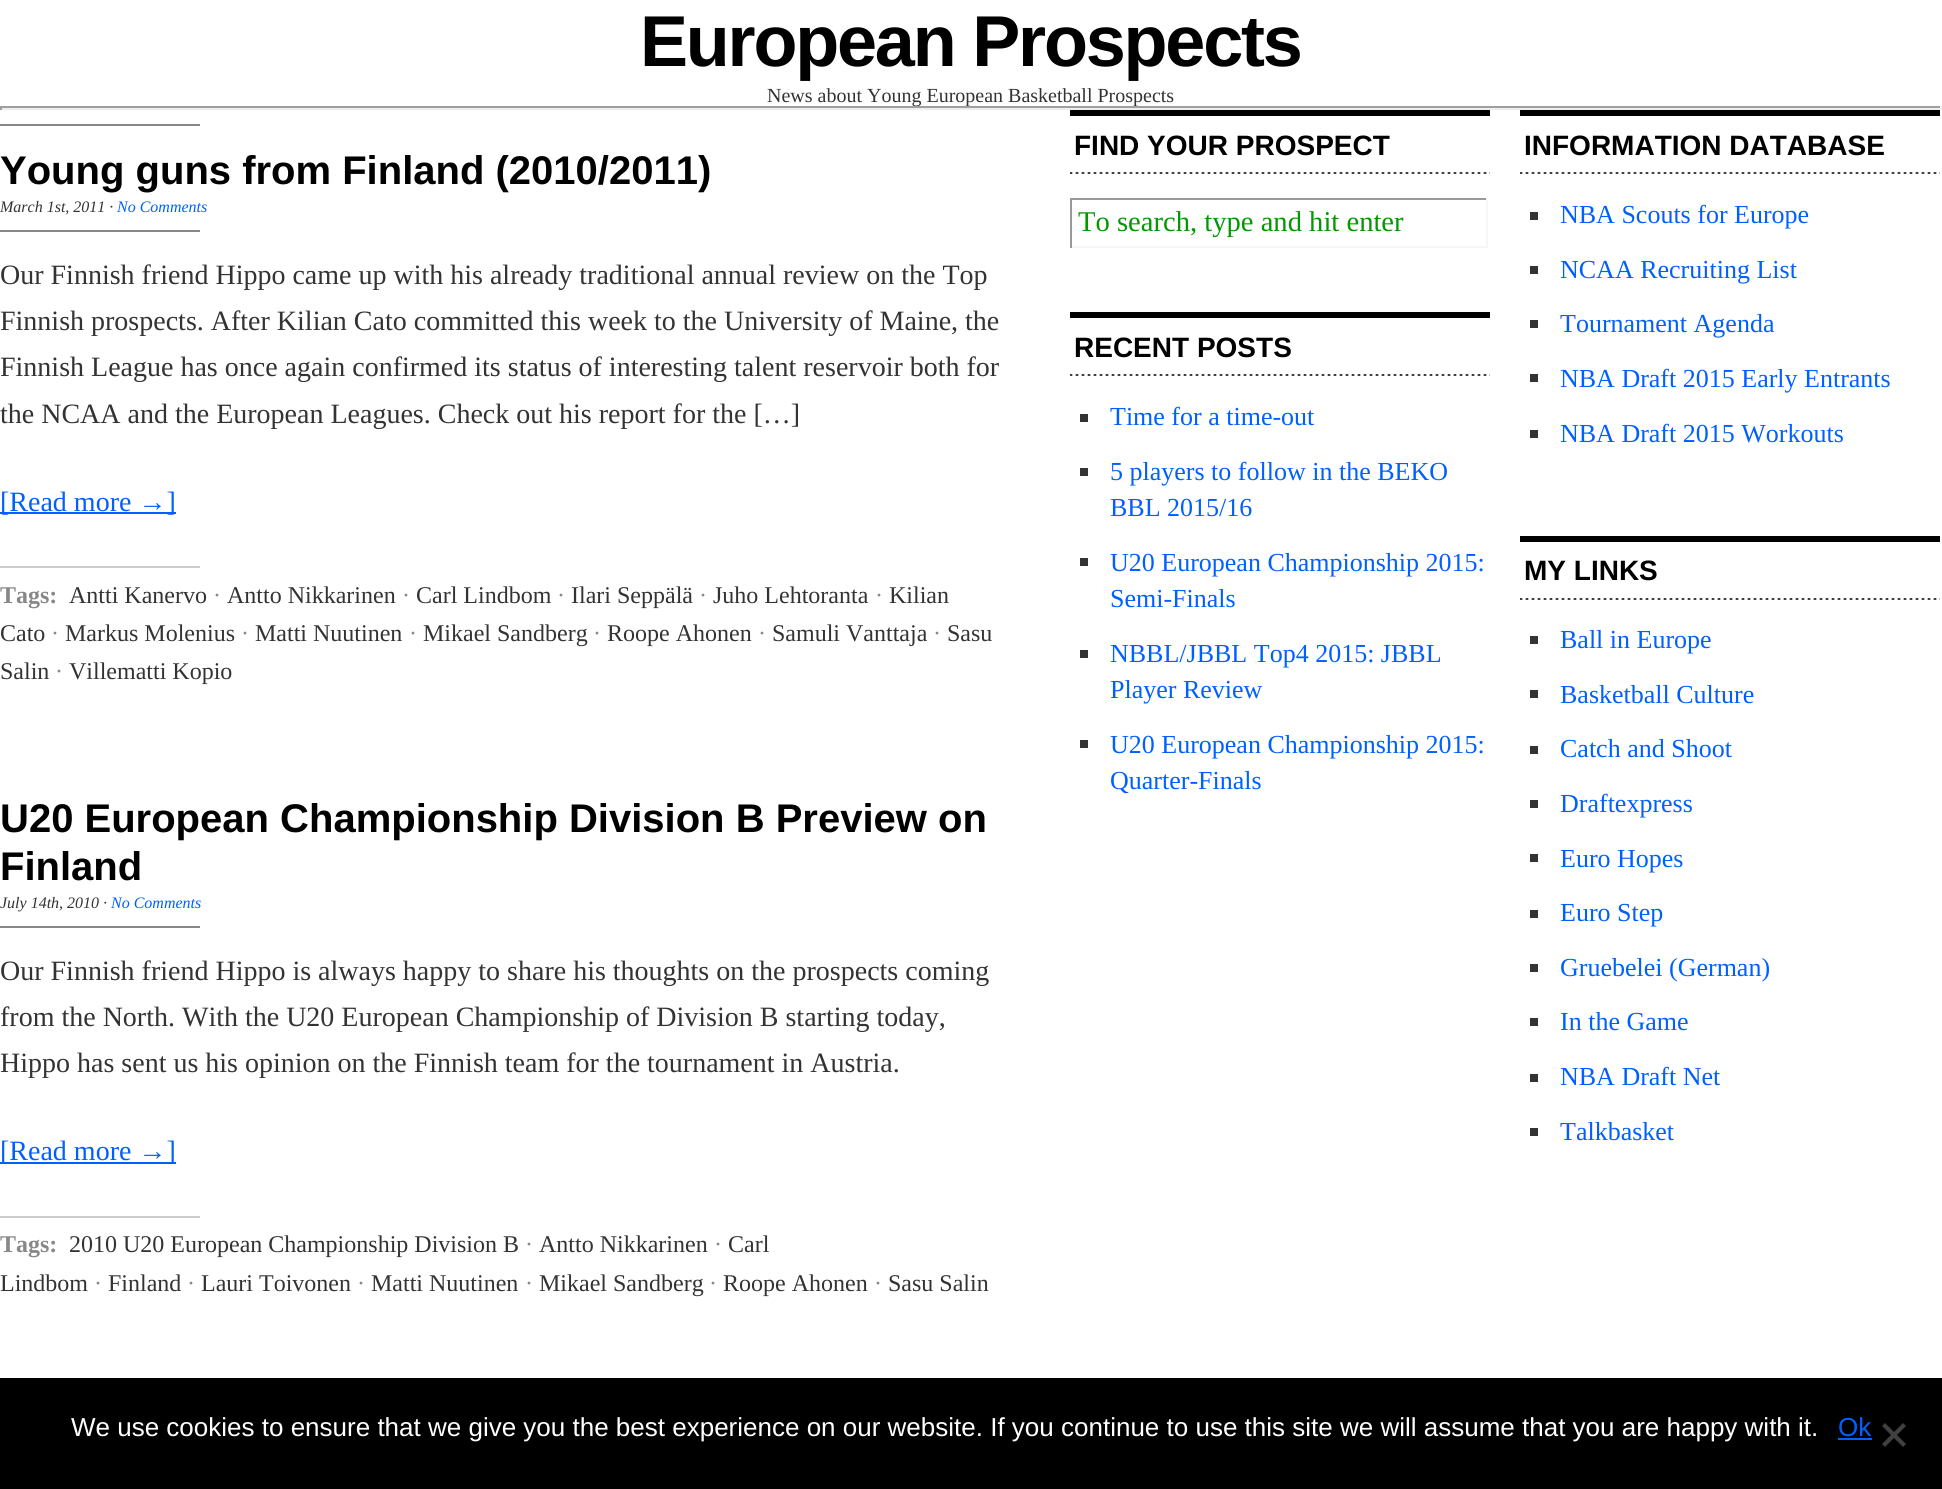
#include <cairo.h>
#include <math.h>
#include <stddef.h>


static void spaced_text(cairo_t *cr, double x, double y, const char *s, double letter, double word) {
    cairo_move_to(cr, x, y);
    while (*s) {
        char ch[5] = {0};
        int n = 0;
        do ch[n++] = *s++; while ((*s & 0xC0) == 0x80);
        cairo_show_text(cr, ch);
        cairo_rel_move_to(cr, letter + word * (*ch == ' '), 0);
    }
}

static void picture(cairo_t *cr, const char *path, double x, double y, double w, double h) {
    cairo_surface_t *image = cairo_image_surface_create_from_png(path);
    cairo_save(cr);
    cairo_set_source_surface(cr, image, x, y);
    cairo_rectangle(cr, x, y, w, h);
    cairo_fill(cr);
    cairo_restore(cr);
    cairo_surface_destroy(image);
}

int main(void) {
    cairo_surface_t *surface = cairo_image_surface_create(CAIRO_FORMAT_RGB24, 1942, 1489);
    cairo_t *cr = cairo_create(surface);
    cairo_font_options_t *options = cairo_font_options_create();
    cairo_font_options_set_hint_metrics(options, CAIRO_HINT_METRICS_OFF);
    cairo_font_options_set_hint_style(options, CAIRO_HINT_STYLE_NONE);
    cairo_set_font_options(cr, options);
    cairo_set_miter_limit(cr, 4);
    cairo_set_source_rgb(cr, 1, 1, 1);
    cairo_paint(cr);
    cairo_select_font_face(cr, "Liberation Sans", CAIRO_FONT_SLANT_NORMAL, CAIRO_FONT_WEIGHT_BOLD);
    cairo_set_font_size(cr, 72);
    cairo_set_source_rgb(cr, 0, 0, 0);
    spaced_text(cr, 640, 66, "European Prospects", -2.2, 0);
    cairo_select_font_face(cr, "Liberation Serif", CAIRO_FONT_SLANT_NORMAL, CAIRO_FONT_WEIGHT_NORMAL);
    cairo_set_font_size(cr, 20);
    cairo_set_source_rgb(cr, 0.2, 0.2, 0.2);
    cairo_move_to(cr, 767, 102);
    cairo_show_text(cr, "News about Young European Basketball Prospects");
    cairo_set_source_rgb(cr, 0.624, 0.624, 0.624);
    cairo_rectangle(cr, 0, 106, 1942, 2);
    cairo_fill(cr);
    cairo_set_source_rgb(cr, 0.933, 0.933, 0.933);
    cairo_rectangle(cr, 1940, 106, 2, 4);
    cairo_fill(cr);
    cairo_rectangle(cr, 0, 108, 1942, 2);
    cairo_fill(cr);
    cairo_set_source_rgb(cr, 0.624, 0.624, 0.624);
    cairo_rectangle(cr, 0, 106, 2, 4);
    cairo_fill(cr);
    cairo_set_source_rgb(cr, 0.533, 0.533, 0.533);
    cairo_rectangle(cr, 0, 124, 200, 2);
    cairo_fill(cr);
    cairo_select_font_face(cr, "Liberation Sans", CAIRO_FONT_SLANT_NORMAL, CAIRO_FONT_WEIGHT_BOLD);
    cairo_set_font_size(cr, 40);
    cairo_set_source_rgb(cr, 0, 0, 0);
    cairo_move_to(cr, 0, 184);
    cairo_show_text(cr, "Young guns from Finland (2010/2011)");
    cairo_set_source_rgb(cr, 0.533, 0.533, 0.533);
    cairo_rectangle(cr, 0, 230, 200, 2);
    cairo_fill(cr);
    cairo_select_font_face(cr, "Liberation Serif", CAIRO_FONT_SLANT_ITALIC, CAIRO_FONT_WEIGHT_NORMAL);
    cairo_set_font_size(cr, 16);
    cairo_set_source_rgb(cr, 0.2, 0.2, 0.2);
    cairo_move_to(cr, 0, 212);
    cairo_show_text(cr, "March 1st, 2011 ·");
    cairo_set_source_rgb(cr, 0, 0.376, 1);
    cairo_move_to(cr, 117, 212);
    cairo_show_text(cr, "No Comments");
    cairo_select_font_face(cr, "Liberation Serif", CAIRO_FONT_SLANT_NORMAL, CAIRO_FONT_WEIGHT_NORMAL);
    cairo_set_font_size(cr, 28);
    cairo_set_source_rgb(cr, 0.2, 0.2, 0.2);
    cairo_move_to(cr, 0, 284);
    cairo_show_text(cr, "Our Finnish friend Hippo came up with his already traditional annual review on the Top");
    cairo_move_to(cr, 0, 330);
    cairo_show_text(cr, "Finnish prospects. After Kilian Cato committed this week to the University of Maine, the");
    cairo_move_to(cr, 0, 376);
    cairo_show_text(cr, "Finnish League has once again confirmed its status of interesting talent reservoir both for");
    cairo_move_to(cr, 0, 423);
    cairo_show_text(cr, "the NCAA and the European Leagues. Check out his report for the […]");
    cairo_set_source_rgb(cr, 0, 0.376, 1);
    cairo_rectangle(cr, 0, 512, 176, 2);
    cairo_fill(cr);
    cairo_move_to(cr, 0, 511);
    cairo_show_text(cr, "[Read more →]");
    cairo_set_source_rgb(cr, 0.8, 0.8, 0.8);
    cairo_rectangle(cr, 0, 566, 200, 2);
    cairo_fill(cr);
    cairo_select_font_face(cr, "Liberation Serif", CAIRO_FONT_SLANT_NORMAL, CAIRO_FONT_WEIGHT_BOLD);
    cairo_set_font_size(cr, 24);
    cairo_set_source_rgb(cr, 0.533, 0.533, 0.533);
    cairo_move_to(cr, 0, 603);
    cairo_show_text(cr, "Tags:");
    cairo_select_font_face(cr, "Liberation Serif", CAIRO_FONT_SLANT_NORMAL, CAIRO_FONT_WEIGHT_NORMAL);
    cairo_set_source_rgb(cr, 0.2, 0.2, 0.2);
    cairo_move_to(cr, 69, 603);
    cairo_show_text(cr, "Antti Kanervo");
    cairo_set_source_rgb(cr, 0.533, 0.533, 0.533);
    cairo_move_to(cr, 213, 603);
    cairo_show_text(cr, "·");
    cairo_set_source_rgb(cr, 0.2, 0.2, 0.2);
    cairo_move_to(cr, 227, 603);
    cairo_show_text(cr, "Antto Nikkarinen");
    cairo_set_source_rgb(cr, 0.533, 0.533, 0.533);
    cairo_move_to(cr, 402, 603);
    cairo_show_text(cr, "·");
    cairo_set_source_rgb(cr, 0.2, 0.2, 0.2);
    cairo_move_to(cr, 416, 603);
    cairo_show_text(cr, "Carl Lindbom");
    cairo_set_source_rgb(cr, 0.533, 0.533, 0.533);
    cairo_move_to(cr, 557, 603);
    cairo_show_text(cr, "·");
    cairo_set_source_rgb(cr, 0.2, 0.2, 0.2);
    cairo_move_to(cr, 571, 603);
    cairo_show_text(cr, "Ilari Seppälä");
    cairo_set_source_rgb(cr, 0.533, 0.533, 0.533);
    cairo_move_to(cr, 699, 603);
    cairo_show_text(cr, "·");
    cairo_set_source_rgb(cr, 0.2, 0.2, 0.2);
    cairo_move_to(cr, 713, 603);
    cairo_show_text(cr, "Juho Lehtoranta");
    cairo_set_source_rgb(cr, 0.533, 0.533, 0.533);
    cairo_move_to(cr, 875, 603);
    cairo_show_text(cr, "·");
    cairo_set_source_rgb(cr, 0.2, 0.2, 0.2);
    cairo_move_to(cr, 889, 603);
    cairo_show_text(cr, "Kilian");
    cairo_move_to(cr, 0, 641);
    cairo_show_text(cr, "Cato");
    cairo_set_source_rgb(cr, 0.533, 0.533, 0.533);
    cairo_move_to(cr, 51, 641);
    cairo_show_text(cr, "·");
    cairo_set_source_rgb(cr, 0.2, 0.2, 0.2);
    cairo_move_to(cr, 65, 641);
    cairo_show_text(cr, "Markus Molenius");
    cairo_set_source_rgb(cr, 0.533, 0.533, 0.533);
    cairo_move_to(cr, 241, 641);
    cairo_show_text(cr, "·");
    cairo_set_source_rgb(cr, 0.2, 0.2, 0.2);
    cairo_move_to(cr, 255, 641);
    cairo_show_text(cr, "Matti Nuutinen");
    cairo_set_source_rgb(cr, 0.533, 0.533, 0.533);
    cairo_move_to(cr, 409, 641);
    cairo_show_text(cr, "·");
    cairo_set_source_rgb(cr, 0.2, 0.2, 0.2);
    cairo_move_to(cr, 423, 641);
    cairo_show_text(cr, "Mikael Sandberg");
    cairo_set_source_rgb(cr, 0.533, 0.533, 0.533);
    cairo_move_to(cr, 593, 641);
    cairo_show_text(cr, "·");
    cairo_set_source_rgb(cr, 0.2, 0.2, 0.2);
    cairo_move_to(cr, 607, 641);
    cairo_show_text(cr, "Roope Ahonen");
    cairo_set_source_rgb(cr, 0.533, 0.533, 0.533);
    cairo_move_to(cr, 758, 641);
    cairo_show_text(cr, "·");
    cairo_set_source_rgb(cr, 0.2, 0.2, 0.2);
    cairo_move_to(cr, 772, 641);
    cairo_show_text(cr, "Samuli Vanttaja");
    cairo_set_source_rgb(cr, 0.533, 0.533, 0.533);
    cairo_move_to(cr, 933, 641);
    cairo_show_text(cr, "·");
    cairo_set_source_rgb(cr, 0.2, 0.2, 0.2);
    cairo_move_to(cr, 947, 641);
    cairo_show_text(cr, "Sasu");
    cairo_move_to(cr, 0, 679);
    cairo_show_text(cr, "Salin");
    cairo_set_source_rgb(cr, 0.533, 0.533, 0.533);
    cairo_move_to(cr, 55, 679);
    cairo_show_text(cr, "·");
    cairo_set_source_rgb(cr, 0.2, 0.2, 0.2);
    cairo_move_to(cr, 69, 679);
    cairo_show_text(cr, "Villematti Kopio");
    cairo_select_font_face(cr, "Liberation Sans", CAIRO_FONT_SLANT_NORMAL, CAIRO_FONT_WEIGHT_BOLD);
    cairo_set_font_size(cr, 40);
    cairo_set_source_rgb(cr, 0, 0, 0);
    cairo_move_to(cr, 0, 832);
    cairo_show_text(cr, "U20 European Championship Division B Preview on");
    cairo_move_to(cr, 0, 880);
    cairo_show_text(cr, "Finland");
    cairo_set_source_rgb(cr, 0.533, 0.533, 0.533);
    cairo_rectangle(cr, 0, 926, 200, 2);
    cairo_fill(cr);
    cairo_select_font_face(cr, "Liberation Serif", CAIRO_FONT_SLANT_ITALIC, CAIRO_FONT_WEIGHT_NORMAL);
    cairo_set_font_size(cr, 16);
    cairo_set_source_rgb(cr, 0.2, 0.2, 0.2);
    cairo_move_to(cr, 0, 908);
    cairo_show_text(cr, "July 14th, 2010 ·");
    cairo_set_source_rgb(cr, 0, 0.376, 1);
    cairo_move_to(cr, 111, 908);
    cairo_show_text(cr, "No Comments");
    cairo_select_font_face(cr, "Liberation Serif", CAIRO_FONT_SLANT_NORMAL, CAIRO_FONT_WEIGHT_NORMAL);
    cairo_set_font_size(cr, 28);
    cairo_set_source_rgb(cr, 0.2, 0.2, 0.2);
    cairo_move_to(cr, 0, 980);
    cairo_show_text(cr, "Our Finnish friend Hippo is always happy to share his thoughts on the prospects coming");
    cairo_move_to(cr, 0, 1026);
    cairo_show_text(cr, "from the North. With the U20 European Championship of Division B starting today,");
    cairo_move_to(cr, 0, 1072);
    cairo_show_text(cr, "Hippo has sent us his opinion on the Finnish team for the tournament in Austria.");
    cairo_set_source_rgb(cr, 0, 0.376, 1);
    cairo_rectangle(cr, 0, 1162, 176, 2);
    cairo_fill(cr);
    cairo_move_to(cr, 0, 1160);
    cairo_show_text(cr, "[Read more →]");
    cairo_set_source_rgb(cr, 0.8, 0.8, 0.8);
    cairo_rectangle(cr, 0, 1216, 200, 2);
    cairo_fill(cr);
    cairo_select_font_face(cr, "Liberation Serif", CAIRO_FONT_SLANT_NORMAL, CAIRO_FONT_WEIGHT_BOLD);
    cairo_set_font_size(cr, 24);
    cairo_set_source_rgb(cr, 0.533, 0.533, 0.533);
    cairo_move_to(cr, 0, 1252);
    cairo_show_text(cr, "Tags:");
    cairo_select_font_face(cr, "Liberation Serif", CAIRO_FONT_SLANT_NORMAL, CAIRO_FONT_WEIGHT_NORMAL);
    cairo_set_source_rgb(cr, 0.2, 0.2, 0.2);
    cairo_move_to(cr, 69, 1252);
    cairo_show_text(cr, "2010 U20 European Championship Division B");
    cairo_set_source_rgb(cr, 0.533, 0.533, 0.533);
    cairo_move_to(cr, 525, 1252);
    cairo_show_text(cr, "·");
    cairo_set_source_rgb(cr, 0.2, 0.2, 0.2);
    cairo_move_to(cr, 539, 1252);
    cairo_show_text(cr, "Antto Nikkarinen");
    cairo_set_source_rgb(cr, 0.533, 0.533, 0.533);
    cairo_move_to(cr, 714, 1252);
    cairo_show_text(cr, "·");
    cairo_set_source_rgb(cr, 0.2, 0.2, 0.2);
    cairo_move_to(cr, 728, 1252);
    cairo_show_text(cr, "Carl");
    cairo_move_to(cr, 0, 1291);
    cairo_show_text(cr, "Lindbom");
    cairo_set_source_rgb(cr, 0.533, 0.533, 0.533);
    cairo_move_to(cr, 94, 1291);
    cairo_show_text(cr, "·");
    cairo_set_source_rgb(cr, 0.2, 0.2, 0.2);
    cairo_move_to(cr, 108, 1291);
    cairo_show_text(cr, "Finland");
    cairo_set_source_rgb(cr, 0.533, 0.533, 0.533);
    cairo_move_to(cr, 187, 1291);
    cairo_show_text(cr, "·");
    cairo_set_source_rgb(cr, 0.2, 0.2, 0.2);
    cairo_move_to(cr, 201, 1291);
    cairo_show_text(cr, "Lauri Toivonen");
    cairo_set_source_rgb(cr, 0.533, 0.533, 0.533);
    cairo_move_to(cr, 357, 1291);
    cairo_show_text(cr, "·");
    cairo_set_source_rgb(cr, 0.2, 0.2, 0.2);
    cairo_move_to(cr, 371, 1291);
    cairo_show_text(cr, "Matti Nuutinen");
    cairo_set_source_rgb(cr, 0.533, 0.533, 0.533);
    cairo_move_to(cr, 525, 1291);
    cairo_show_text(cr, "·");
    cairo_set_source_rgb(cr, 0.2, 0.2, 0.2);
    cairo_move_to(cr, 539, 1291);
    cairo_show_text(cr, "Mikael Sandberg");
    cairo_set_source_rgb(cr, 0.533, 0.533, 0.533);
    cairo_move_to(cr, 709, 1291);
    cairo_show_text(cr, "·");
    cairo_set_source_rgb(cr, 0.2, 0.2, 0.2);
    cairo_move_to(cr, 723, 1291);
    cairo_show_text(cr, "Roope Ahonen");
    cairo_set_source_rgb(cr, 0.533, 0.533, 0.533);
    cairo_move_to(cr, 874, 1291);
    cairo_show_text(cr, "·");
    cairo_set_source_rgb(cr, 0.2, 0.2, 0.2);
    cairo_move_to(cr, 888, 1291);
    cairo_show_text(cr, "Sasu Salin");
    picture(cr, "img1.png", 1070, 172, 420, 2);
    cairo_set_source_rgb(cr, 0, 0, 0);
    cairo_rectangle(cr, 1070, 110, 420, 6);
    cairo_fill(cr);
    cairo_select_font_face(cr, "Liberation Sans", CAIRO_FONT_SLANT_NORMAL, CAIRO_FONT_WEIGHT_BOLD);
    cairo_set_font_size(cr, 28);
    cairo_move_to(cr, 1074, 155);
    cairo_show_text(cr, "FIND YOUR PROSPECT");
    cairo_set_source_rgb(cr, 0.6, 0.6, 0.6);
    cairo_rectangle(cr, 1070, 198, 418, 2);
    cairo_fill(cr);
    cairo_set_source_rgb(cr, 0.961, 0.961, 0.961);
    cairo_rectangle(cr, 1486, 198, 2, 50);
    cairo_fill(cr);
    cairo_rectangle(cr, 1070, 246, 418, 2);
    cairo_fill(cr);
    cairo_set_source_rgb(cr, 0.6, 0.6, 0.6);
    cairo_rectangle(cr, 1070, 198, 2, 50);
    cairo_fill(cr);
    cairo_select_font_face(cr, "Liberation Serif", CAIRO_FONT_SLANT_NORMAL, CAIRO_FONT_WEIGHT_NORMAL);
    cairo_set_font_size(cr, 28.6);
    cairo_set_source_rgb(cr, 0, 0.6, 0);
    cairo_move_to(cr, 1078, 231);
    cairo_show_text(cr, "To search, type and hit enter");
    picture(cr, "img1.png", 1070, 374, 420, 2);
    cairo_set_source_rgb(cr, 0, 0, 0);
    cairo_rectangle(cr, 1070, 312, 420, 6);
    cairo_fill(cr);
    cairo_select_font_face(cr, "Liberation Sans", CAIRO_FONT_SLANT_NORMAL, CAIRO_FONT_WEIGHT_BOLD);
    cairo_set_font_size(cr, 28);
    cairo_move_to(cr, 1074, 357);
    cairo_show_text(cr, "RECENT POSTS");
    cairo_set_source_rgb(cr, 0.2, 0.2, 0.2);
    cairo_rectangle(cr, 1080, 414, 8, 8);
    cairo_fill(cr);
    cairo_select_font_face(cr, "Liberation Serif", CAIRO_FONT_SLANT_NORMAL, CAIRO_FONT_WEIGHT_NORMAL);
    cairo_set_font_size(cr, 26);
    cairo_set_source_rgb(cr, 0, 0.376, 1);
    cairo_move_to(cr, 1110, 425);
    cairo_show_text(cr, "Time for a time-out");
    cairo_set_source_rgb(cr, 0.2, 0.2, 0.2);
    cairo_rectangle(cr, 1080, 468, 8, 8);
    cairo_fill(cr);
    cairo_set_source_rgb(cr, 0, 0.376, 1);
    cairo_move_to(cr, 1110, 480);
    cairo_show_text(cr, "5 players to follow in the BEKO");
    cairo_move_to(cr, 1110, 516);
    cairo_show_text(cr, "BBL 2015/16");
    cairo_set_source_rgb(cr, 0.2, 0.2, 0.2);
    cairo_rectangle(cr, 1080, 558, 8, 8);
    cairo_fill(cr);
    cairo_set_source_rgb(cr, 0, 0.376, 1);
    cairo_move_to(cr, 1110, 571);
    cairo_show_text(cr, "U20 European Championship 2015:");
    cairo_move_to(cr, 1110, 607);
    cairo_show_text(cr, "Semi-Finals");
    cairo_set_source_rgb(cr, 0.2, 0.2, 0.2);
    cairo_rectangle(cr, 1080, 650, 8, 8);
    cairo_fill(cr);
    cairo_set_source_rgb(cr, 0, 0.376, 1);
    cairo_move_to(cr, 1110, 662);
    cairo_show_text(cr, "NBBL/JBBL Top4 2015: JBBL");
    cairo_move_to(cr, 1110, 698);
    cairo_show_text(cr, "Player Review");
    cairo_set_source_rgb(cr, 0.2, 0.2, 0.2);
    cairo_rectangle(cr, 1080, 740, 8, 8);
    cairo_fill(cr);
    cairo_set_source_rgb(cr, 0, 0.376, 1);
    cairo_move_to(cr, 1110, 753);
    cairo_show_text(cr, "U20 European Championship 2015:");
    cairo_move_to(cr, 1110, 789);
    cairo_show_text(cr, "Quarter-Finals");
    picture(cr, "img1.png", 1520, 172, 420, 2);
    cairo_set_source_rgb(cr, 0, 0, 0);
    cairo_rectangle(cr, 1520, 110, 420, 6);
    cairo_fill(cr);
    cairo_select_font_face(cr, "Liberation Sans", CAIRO_FONT_SLANT_NORMAL, CAIRO_FONT_WEIGHT_BOLD);
    cairo_set_font_size(cr, 28);
    cairo_move_to(cr, 1524, 155);
    cairo_show_text(cr, "INFORMATION DATABASE");
    cairo_set_source_rgb(cr, 0.2, 0.2, 0.2);
    cairo_rectangle(cr, 1530, 212, 8, 8);
    cairo_fill(cr);
    cairo_select_font_face(cr, "Liberation Serif", CAIRO_FONT_SLANT_NORMAL, CAIRO_FONT_WEIGHT_NORMAL);
    cairo_set_font_size(cr, 26);
    cairo_set_source_rgb(cr, 0, 0.376, 1);
    cairo_move_to(cr, 1560, 223);
    cairo_show_text(cr, "NBA Scouts for Europe");
    cairo_set_source_rgb(cr, 0.2, 0.2, 0.2);
    cairo_rectangle(cr, 1530, 266, 8, 8);
    cairo_fill(cr);
    cairo_set_source_rgb(cr, 0, 0.376, 1);
    cairo_move_to(cr, 1560, 278);
    cairo_show_text(cr, "NCAA Recruiting List");
    cairo_set_source_rgb(cr, 0.2, 0.2, 0.2);
    cairo_rectangle(cr, 1530, 320, 8, 8);
    cairo_fill(cr);
    cairo_set_source_rgb(cr, 0, 0.376, 1);
    cairo_move_to(cr, 1560, 332);
    cairo_show_text(cr, "Tournament Agenda");
    cairo_set_source_rgb(cr, 0.2, 0.2, 0.2);
    cairo_rectangle(cr, 1530, 374, 8, 8);
    cairo_fill(cr);
    cairo_set_source_rgb(cr, 0, 0.376, 1);
    cairo_move_to(cr, 1560, 387);
    cairo_show_text(cr, "NBA Draft 2015 Early Entrants");
    cairo_set_source_rgb(cr, 0.2, 0.2, 0.2);
    cairo_rectangle(cr, 1530, 430, 8, 8);
    cairo_fill(cr);
    cairo_set_source_rgb(cr, 0, 0.376, 1);
    cairo_move_to(cr, 1560, 442);
    cairo_show_text(cr, "NBA Draft 2015 Workouts");
    picture(cr, "img1.png", 1520, 598, 420, 2);
    cairo_set_source_rgb(cr, 0, 0, 0);
    cairo_rectangle(cr, 1520, 536, 420, 6);
    cairo_fill(cr);
    cairo_select_font_face(cr, "Liberation Sans", CAIRO_FONT_SLANT_NORMAL, CAIRO_FONT_WEIGHT_BOLD);
    cairo_set_font_size(cr, 28);
    cairo_move_to(cr, 1524, 580);
    cairo_show_text(cr, "MY LINKS");
    cairo_set_source_rgb(cr, 0.2, 0.2, 0.2);
    cairo_rectangle(cr, 1530, 636, 8, 8);
    cairo_fill(cr);
    cairo_select_font_face(cr, "Liberation Serif", CAIRO_FONT_SLANT_NORMAL, CAIRO_FONT_WEIGHT_NORMAL);
    cairo_set_font_size(cr, 26);
    cairo_set_source_rgb(cr, 0, 0.376, 1);
    cairo_move_to(cr, 1560, 648);
    cairo_show_text(cr, "Ball in Europe");
    cairo_set_source_rgb(cr, 0.2, 0.2, 0.2);
    cairo_rectangle(cr, 1530, 690, 8, 8);
    cairo_fill(cr);
    cairo_set_source_rgb(cr, 0, 0.376, 1);
    cairo_move_to(cr, 1560, 703);
    cairo_show_text(cr, "Basketball Culture");
    cairo_set_source_rgb(cr, 0.2, 0.2, 0.2);
    cairo_rectangle(cr, 1530, 746, 8, 8);
    cairo_fill(cr);
    cairo_set_source_rgb(cr, 0, 0.376, 1);
    cairo_move_to(cr, 1560, 757);
    cairo_show_text(cr, "Catch and Shoot");
    cairo_set_source_rgb(cr, 0.2, 0.2, 0.2);
    cairo_rectangle(cr, 1530, 800, 8, 8);
    cairo_fill(cr);
    cairo_set_source_rgb(cr, 0, 0.376, 1);
    cairo_move_to(cr, 1560, 812);
    cairo_show_text(cr, "Draftexpress");
    cairo_set_source_rgb(cr, 0.2, 0.2, 0.2);
    cairo_rectangle(cr, 1530, 854, 8, 8);
    cairo_fill(cr);
    cairo_set_source_rgb(cr, 0, 0.376, 1);
    cairo_move_to(cr, 1560, 867);
    cairo_show_text(cr, "Euro Hopes");
    cairo_set_source_rgb(cr, 0.2, 0.2, 0.2);
    cairo_rectangle(cr, 1530, 910, 8, 8);
    cairo_fill(cr);
    cairo_set_source_rgb(cr, 0, 0.376, 1);
    cairo_move_to(cr, 1560, 921);
    cairo_show_text(cr, "Euro Step");
    cairo_set_source_rgb(cr, 0.2, 0.2, 0.2);
    cairo_rectangle(cr, 1530, 964, 8, 8);
    cairo_fill(cr);
    cairo_set_source_rgb(cr, 0, 0.376, 1);
    cairo_move_to(cr, 1560, 976);
    cairo_show_text(cr, "Gruebelei (German)");
    cairo_set_source_rgb(cr, 0.2, 0.2, 0.2);
    cairo_rectangle(cr, 1530, 1018, 8, 8);
    cairo_fill(cr);
    cairo_set_source_rgb(cr, 0, 0.376, 1);
    cairo_move_to(cr, 1560, 1030);
    cairo_show_text(cr, "In the Game");
    cairo_set_source_rgb(cr, 0.2, 0.2, 0.2);
    cairo_rectangle(cr, 1530, 1074, 8, 8);
    cairo_fill(cr);
    cairo_set_source_rgb(cr, 0, 0.376, 1);
    cairo_move_to(cr, 1560, 1085);
    cairo_show_text(cr, "NBA Draft Net");
    cairo_set_source_rgb(cr, 0.2, 0.2, 0.2);
    cairo_rectangle(cr, 1530, 1128, 8, 8);
    cairo_fill(cr);
    cairo_set_source_rgb(cr, 0, 0.376, 1);
    cairo_move_to(cr, 1560, 1140);
    cairo_show_text(cr, "Talkbasket");
    cairo_set_source_rgb(cr, 0, 0, 0);
    cairo_rectangle(cr, 0, 1378, 1942, 111);
    cairo_fill(cr);
    cairo_select_font_face(cr, "Liberation Sans", CAIRO_FONT_SLANT_NORMAL, CAIRO_FONT_WEIGHT_NORMAL);
    cairo_set_source_rgb(cr, 1, 1, 1);
    cairo_move_to(cr, 71, 1436);
    cairo_show_text(cr, "We use cookies to ensure that we give you the best experience on our website. If you continue to use this site we will assume that you are happy with it.");
    cairo_set_source_rgb(cr, 0, 0.376, 1);
    cairo_move_to(cr, 1838, 1436);
    cairo_show_text(cr, "Ok");
    cairo_rectangle(cr, 1838, 1438, 34, 2);
    cairo_fill(cr);
    cairo_set_source_rgb(cr, 0.251, 0.251, 0.251);
    cairo_new_path(cr);
    cairo_move_to(cr, 1903, 1423);
    cairo_line_to(cr, 1906, 1426);
    cairo_line_to(cr, 1885, 1447);
    cairo_line_to(cr, 1882, 1444);
    cairo_close_path(cr);
    cairo_fill(cr);
    cairo_new_path(cr);
    cairo_move_to(cr, 1882, 1426);
    cairo_line_to(cr, 1885, 1423);
    cairo_line_to(cr, 1906, 1444);
    cairo_line_to(cr, 1903, 1447);
    cairo_close_path(cr);
    cairo_fill(cr);
    cairo_surface_write_to_png(surface, "page.png");
    cairo_font_options_destroy(options);
    cairo_destroy(cr);
    cairo_surface_destroy(surface);
    return 0;
}
